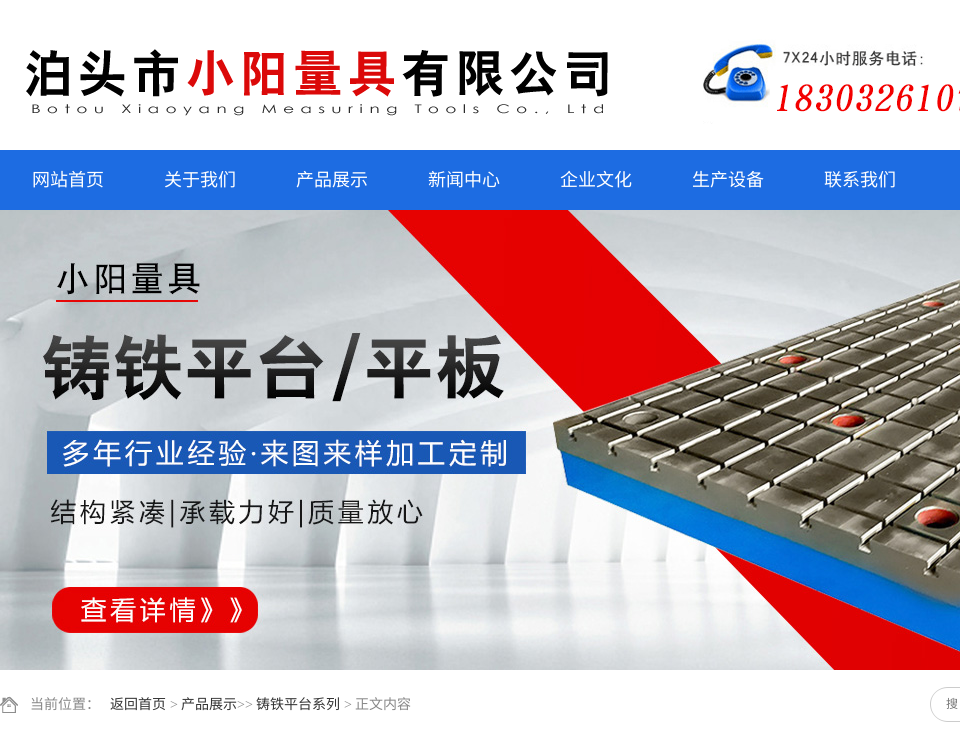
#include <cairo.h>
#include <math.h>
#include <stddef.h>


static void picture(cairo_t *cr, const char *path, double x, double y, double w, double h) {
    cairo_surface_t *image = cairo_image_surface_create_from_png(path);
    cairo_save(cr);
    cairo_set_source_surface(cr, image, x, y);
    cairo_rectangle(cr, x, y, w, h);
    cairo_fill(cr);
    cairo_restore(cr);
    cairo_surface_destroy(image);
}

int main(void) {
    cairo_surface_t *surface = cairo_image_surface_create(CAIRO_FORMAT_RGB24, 960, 740);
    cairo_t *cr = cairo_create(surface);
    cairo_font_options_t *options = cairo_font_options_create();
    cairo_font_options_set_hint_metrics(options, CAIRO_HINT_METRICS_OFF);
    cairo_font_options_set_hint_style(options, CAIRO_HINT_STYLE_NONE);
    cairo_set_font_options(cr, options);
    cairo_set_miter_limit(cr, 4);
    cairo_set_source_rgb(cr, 1, 1, 1);
    cairo_paint(cr);
    picture(cr, "img1.png", 26, 49, 582, 67);
    picture(cr, "img2.png", 703, 39, 257, 85);
    cairo_set_source_rgb(cr, 0.114, 0.424, 0.886);
    cairo_rectangle(cr, 0, 150, 960, 60);
    cairo_fill(cr);
    cairo_select_font_face(cr, "Noto Sans CJK SC", CAIRO_FONT_SLANT_NORMAL, CAIRO_FONT_WEIGHT_NORMAL);
    cairo_set_font_size(cr, 18);
    cairo_set_source_rgb(cr, 1, 1, 1);
    cairo_move_to(cr, 32, 186);
    cairo_show_text(cr, "网站首页");
    cairo_move_to(cr, 164, 186);
    cairo_show_text(cr, "关于我们");
    cairo_move_to(cr, 296, 186);
    cairo_show_text(cr, "产品展示");
    cairo_move_to(cr, 428, 186);
    cairo_show_text(cr, "新闻中心");
    cairo_move_to(cr, 560, 186);
    cairo_show_text(cr, "企业文化");
    cairo_move_to(cr, 692, 186);
    cairo_show_text(cr, "生产设备");
    cairo_move_to(cr, 824, 186);
    cairo_show_text(cr, "联系我们");
    picture(cr, "img3.png", 0, 210, 960, 460);
    picture(cr, "img4.png", 0, 696, 18, 17);
    cairo_set_font_size(cr, 14);
    cairo_set_source_rgb(cr, 0.533, 0.533, 0.533);
    cairo_move_to(cr, 30, 709);
    cairo_show_text(cr, "当前位置：");
    cairo_set_source_rgb(cr, 0.2, 0.2, 0.2);
    cairo_move_to(cr, 110, 709);
    cairo_show_text(cr, "返回首页");
    cairo_select_font_face(cr, "Liberation Serif", CAIRO_FONT_SLANT_NORMAL, CAIRO_FONT_WEIGHT_NORMAL);
    cairo_set_source_rgb(cr, 0.533, 0.533, 0.533);
    cairo_move_to(cr, 170, 709);
    cairo_show_text(cr, ">");
    cairo_select_font_face(cr, "Noto Sans CJK SC", CAIRO_FONT_SLANT_NORMAL, CAIRO_FONT_WEIGHT_NORMAL);
    cairo_set_source_rgb(cr, 0.2, 0.2, 0.2);
    cairo_move_to(cr, 181, 709);
    cairo_show_text(cr, "产品展示");
    cairo_select_font_face(cr, "Liberation Serif", CAIRO_FONT_SLANT_NORMAL, CAIRO_FONT_WEIGHT_NORMAL);
    cairo_set_source_rgb(cr, 0.533, 0.533, 0.533);
    cairo_move_to(cr, 237, 709);
    cairo_show_text(cr, ">>");
    cairo_select_font_face(cr, "Noto Sans CJK SC", CAIRO_FONT_SLANT_NORMAL, CAIRO_FONT_WEIGHT_NORMAL);
    cairo_set_source_rgb(cr, 0.2, 0.2, 0.2);
    cairo_move_to(cr, 256, 709);
    cairo_show_text(cr, "铸铁平台系列");
    cairo_select_font_face(cr, "Liberation Serif", CAIRO_FONT_SLANT_NORMAL, CAIRO_FONT_WEIGHT_NORMAL);
    cairo_set_source_rgb(cr, 0.533, 0.533, 0.533);
    cairo_move_to(cr, 344, 709);
    cairo_show_text(cr, ">");
    cairo_select_font_face(cr, "Noto Sans CJK SC", CAIRO_FONT_SLANT_NORMAL, CAIRO_FONT_WEIGHT_NORMAL);
    cairo_move_to(cr, 355, 709);
    cairo_show_text(cr, "正文内容");
    cairo_set_source_rgb(cr, 0.8, 0.8, 0.8);
    cairo_set_fill_rule(cr, CAIRO_FILL_RULE_EVEN_ODD);
    cairo_new_path(cr);
    cairo_move_to(cr, 948, 687);
    cairo_line_to(cr, 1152, 687);
    cairo_line_to(cr, 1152, 722);
    cairo_line_to(cr, 948, 722);
    cairo_curve_to(cr, 938, 722, 930, 714, 930, 704);
    cairo_curve_to(cr, 930, 695, 938, 687, 948, 687);
    cairo_close_path(cr);
    cairo_move_to(cr, 948, 688);
    cairo_line_to(cr, 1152, 688);
    cairo_line_to(cr, 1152, 721);
    cairo_line_to(cr, 948, 721);
    cairo_curve_to(cr, 938, 721, 931, 714, 931, 704);
    cairo_curve_to(cr, 931, 695, 938, 688, 948, 688);
    cairo_close_path(cr);
    cairo_fill(cr);
    cairo_set_font_size(cr, 12);
    cairo_set_source_rgb(cr, 0.459, 0.459, 0.459);
    cairo_move_to(cr, 946, 708);
    cairo_show_text(cr, "搜");
    cairo_surface_write_to_png(surface, "page.png");
    cairo_font_options_destroy(options);
    cairo_destroy(cr);
    cairo_surface_destroy(surface);
    return 0;
}
